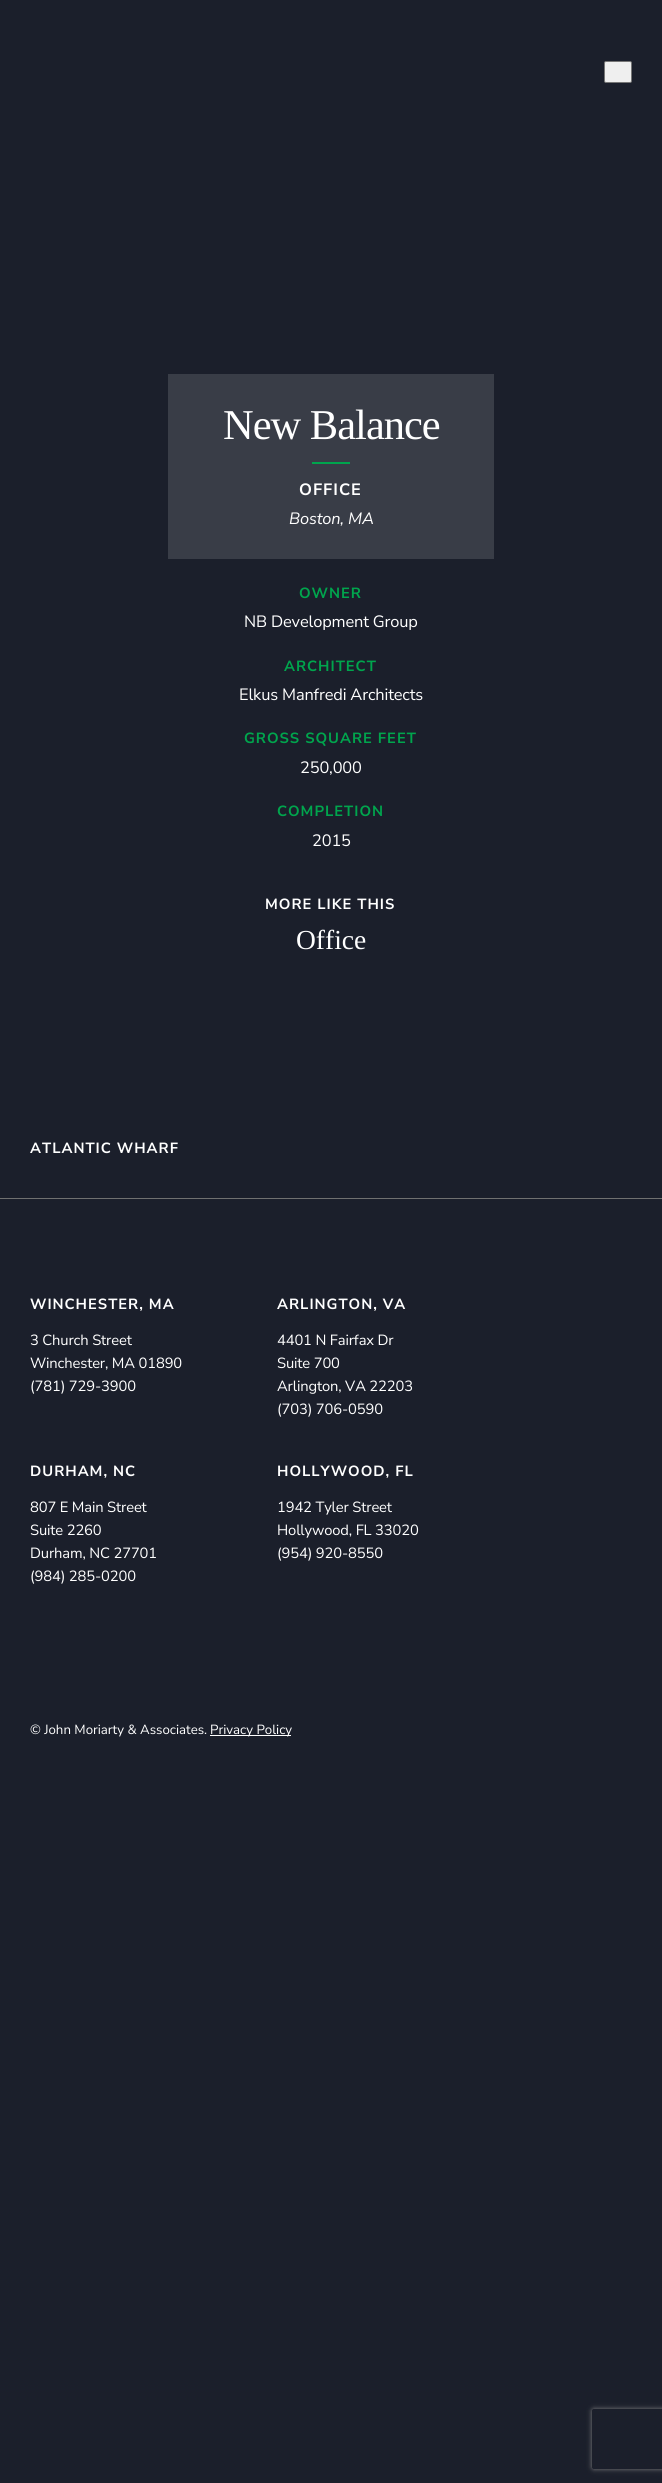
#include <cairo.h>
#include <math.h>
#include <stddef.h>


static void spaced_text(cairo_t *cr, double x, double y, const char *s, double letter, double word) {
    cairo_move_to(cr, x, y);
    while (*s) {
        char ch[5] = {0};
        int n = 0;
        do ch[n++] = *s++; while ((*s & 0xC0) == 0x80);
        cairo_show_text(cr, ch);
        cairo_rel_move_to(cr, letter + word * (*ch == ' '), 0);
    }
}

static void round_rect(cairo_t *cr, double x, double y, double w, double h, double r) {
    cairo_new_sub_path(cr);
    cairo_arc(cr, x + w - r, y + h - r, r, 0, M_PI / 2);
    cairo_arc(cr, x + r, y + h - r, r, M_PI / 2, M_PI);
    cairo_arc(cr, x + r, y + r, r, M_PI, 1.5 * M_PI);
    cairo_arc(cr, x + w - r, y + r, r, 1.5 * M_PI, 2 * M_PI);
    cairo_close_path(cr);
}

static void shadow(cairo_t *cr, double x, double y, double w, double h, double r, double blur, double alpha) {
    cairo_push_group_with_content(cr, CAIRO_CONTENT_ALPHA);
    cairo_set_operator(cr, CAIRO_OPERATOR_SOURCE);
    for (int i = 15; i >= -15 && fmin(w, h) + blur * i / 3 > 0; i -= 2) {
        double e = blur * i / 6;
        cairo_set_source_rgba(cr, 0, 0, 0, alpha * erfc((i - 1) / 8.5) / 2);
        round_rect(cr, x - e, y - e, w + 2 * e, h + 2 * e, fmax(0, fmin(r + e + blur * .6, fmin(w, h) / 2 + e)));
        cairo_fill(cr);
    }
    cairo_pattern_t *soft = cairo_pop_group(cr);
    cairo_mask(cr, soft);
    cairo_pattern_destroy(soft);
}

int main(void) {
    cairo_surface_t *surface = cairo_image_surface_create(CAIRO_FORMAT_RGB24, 662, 2483);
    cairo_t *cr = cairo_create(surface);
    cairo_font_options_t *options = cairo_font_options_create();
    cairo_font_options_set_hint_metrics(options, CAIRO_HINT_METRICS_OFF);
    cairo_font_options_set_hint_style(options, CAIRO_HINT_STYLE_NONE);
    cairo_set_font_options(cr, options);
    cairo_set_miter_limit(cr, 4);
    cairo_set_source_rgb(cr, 0.106, 0.122, 0.169);
    cairo_paint(cr);
    cairo_set_source_rgb(cr, 0.937, 0.937, 0.937);
    round_rect(cr, 604.5, 61.5, 27, 21, 1.5);
    cairo_fill_preserve(cr);
    cairo_set_source_rgb(cr, 0.463, 0.463, 0.463);
    cairo_set_line_width(cr, 1);
    cairo_stroke(cr);
    cairo_set_source_rgb(cr, 0.224, 0.239, 0.278);
    cairo_rectangle(cr, 168, 374, 326, 185);
    cairo_fill(cr);
    cairo_select_font_face(cr, "Liberation Serif", CAIRO_FONT_SLANT_NORMAL, CAIRO_FONT_WEIGHT_NORMAL);
    cairo_set_font_size(cr, 42.5);
    cairo_set_source_rgb(cr, 1, 1, 1);
    spaced_text(cr, 223, 439, "New Balance", -1, 0);
    cairo_set_source_rgb(cr, 0, 0.647, 0.302);
    cairo_rectangle(cr, 312, 462, 38, 2);
    cairo_fill(cr);
    cairo_select_font_face(cr, "Nunito Sans", CAIRO_FONT_SLANT_NORMAL, CAIRO_FONT_WEIGHT_BOLD);
    cairo_set_font_size(cr, 16.4);
    cairo_set_source_rgb(cr, 1, 1, 1);
    spaced_text(cr, 299, 495, "OFFICE", 1, 0);
    cairo_select_font_face(cr, "Nunito Sans", CAIRO_FONT_SLANT_ITALIC, CAIRO_FONT_WEIGHT_NORMAL);
    spaced_text(cr, 289, 524, "Boston, MA", -0.15, 0);
    cairo_select_font_face(cr, "Nunito Sans", CAIRO_FONT_SLANT_NORMAL, CAIRO_FONT_WEIGHT_BOLD);
    cairo_set_font_size(cr, 14.75);
    cairo_set_source_rgb(cr, 0, 0.647, 0.302);
    spaced_text(cr, 299, 598, "OWNER", 1, 0);
    cairo_select_font_face(cr, "Nunito Sans", CAIRO_FONT_SLANT_NORMAL, CAIRO_FONT_WEIGHT_NORMAL);
    cairo_set_font_size(cr, 16.4);
    cairo_set_source_rgb(cr, 1, 1, 1);
    spaced_text(cr, 244, 627, "NB Development Group", -0.15, 0);
    cairo_select_font_face(cr, "Nunito Sans", CAIRO_FONT_SLANT_NORMAL, CAIRO_FONT_WEIGHT_BOLD);
    cairo_set_font_size(cr, 14.75);
    cairo_set_source_rgb(cr, 0, 0.647, 0.302);
    spaced_text(cr, 284, 671, "ARCHITECT", 1, 0);
    cairo_select_font_face(cr, "Nunito Sans", CAIRO_FONT_SLANT_NORMAL, CAIRO_FONT_WEIGHT_NORMAL);
    cairo_set_font_size(cr, 16.4);
    cairo_set_source_rgb(cr, 1, 1, 1);
    spaced_text(cr, 239, 700, "Elkus Manfredi Architects", -0.15, 0);
    cairo_select_font_face(cr, "Nunito Sans", CAIRO_FONT_SLANT_NORMAL, CAIRO_FONT_WEIGHT_BOLD);
    cairo_set_font_size(cr, 14.75);
    cairo_set_source_rgb(cr, 0, 0.647, 0.302);
    spaced_text(cr, 244, 743, "GROSS SQUARE FEET", 1, 0);
    cairo_select_font_face(cr, "Nunito Sans", CAIRO_FONT_SLANT_NORMAL, CAIRO_FONT_WEIGHT_NORMAL);
    cairo_set_font_size(cr, 16.4);
    cairo_set_source_rgb(cr, 1, 1, 1);
    spaced_text(cr, 300, 773, "250,000", -0.15, 0);
    cairo_select_font_face(cr, "Nunito Sans", CAIRO_FONT_SLANT_NORMAL, CAIRO_FONT_WEIGHT_BOLD);
    cairo_set_font_size(cr, 14.75);
    cairo_set_source_rgb(cr, 0, 0.647, 0.302);
    spaced_text(cr, 277, 816, "COMPLETION", 1, 0);
    cairo_select_font_face(cr, "Nunito Sans", CAIRO_FONT_SLANT_NORMAL, CAIRO_FONT_WEIGHT_NORMAL);
    cairo_set_font_size(cr, 16.4);
    cairo_set_source_rgb(cr, 1, 1, 1);
    spaced_text(cr, 312, 846, "2015", -0.15, 0);
    cairo_select_font_face(cr, "Nunito Sans", CAIRO_FONT_SLANT_NORMAL, CAIRO_FONT_WEIGHT_BOLD);
    cairo_set_font_size(cr, 14.75);
    spaced_text(cr, 265, 909, "MORE LIKE THIS", 1, 0);
    cairo_select_font_face(cr, "Liberation Serif", CAIRO_FONT_SLANT_NORMAL, CAIRO_FONT_WEIGHT_NORMAL);
    cairo_set_font_size(cr, 27.5);
    cairo_move_to(cr, 296, 949);
    cairo_show_text(cr, "Office");
    cairo_select_font_face(cr, "Nunito Sans", CAIRO_FONT_SLANT_NORMAL, CAIRO_FONT_WEIGHT_BOLD);
    cairo_set_font_size(cr, 14.75);
    spaced_text(cr, 30, 1153, "ATLANTIC WHARF", 1, 0);
    cairo_set_source_rgb(cr, 0.439, 0.439, 0.439);
    cairo_rectangle(cr, 0, 1198, 662, 1);
    cairo_fill(cr);
    cairo_set_source_rgb(cr, 1, 1, 1);
    spaced_text(cr, 30, 1309, "WINCHESTER, MA", 1, 0);
    cairo_select_font_face(cr, "Nunito Sans", CAIRO_FONT_SLANT_NORMAL, CAIRO_FONT_WEIGHT_NORMAL);
    spaced_text(cr, 30, 1345, "3 Church Street", -0.15, 0);
    spaced_text(cr, 30, 1368, "Winchester, MA 01890", -0.15, 0);
    spaced_text(cr, 30, 1391, "(781) 729-3900", -0.15, 0);
    cairo_select_font_face(cr, "Nunito Sans", CAIRO_FONT_SLANT_NORMAL, CAIRO_FONT_WEIGHT_BOLD);
    spaced_text(cr, 277, 1309, "ARLINGTON, VA", 1, 0);
    cairo_select_font_face(cr, "Nunito Sans", CAIRO_FONT_SLANT_NORMAL, CAIRO_FONT_WEIGHT_NORMAL);
    spaced_text(cr, 277, 1345, "4401 N Fairfax Dr", -0.15, 0);
    spaced_text(cr, 277, 1368, "Suite 700", -0.15, 0);
    spaced_text(cr, 277, 1391, "Arlington, VA 22203", -0.15, 0);
    spaced_text(cr, 277, 1414, "(703) 706-0590", -0.15, 0);
    cairo_select_font_face(cr, "Nunito Sans", CAIRO_FONT_SLANT_NORMAL, CAIRO_FONT_WEIGHT_BOLD);
    spaced_text(cr, 30, 1476, "DURHAM, NC", 1, 0);
    cairo_select_font_face(cr, "Nunito Sans", CAIRO_FONT_SLANT_NORMAL, CAIRO_FONT_WEIGHT_NORMAL);
    spaced_text(cr, 30, 1512, "807 E Main Street", -0.15, 0);
    spaced_text(cr, 30, 1535, "Suite 2260", -0.15, 0);
    spaced_text(cr, 30, 1558, "Durham, NC 27701", -0.15, 0);
    spaced_text(cr, 30, 1581, "(984) 285-0200", -0.15, 0);
    cairo_select_font_face(cr, "Nunito Sans", CAIRO_FONT_SLANT_NORMAL, CAIRO_FONT_WEIGHT_BOLD);
    spaced_text(cr, 277, 1476, "HOLLYWOOD, FL", 1, 0);
    cairo_select_font_face(cr, "Nunito Sans", CAIRO_FONT_SLANT_NORMAL, CAIRO_FONT_WEIGHT_NORMAL);
    spaced_text(cr, 277, 1512, "1942 Tyler Street", -0.15, 0);
    spaced_text(cr, 277, 1535, "Hollywood, FL 33020", -0.15, 0);
    spaced_text(cr, 277, 1558, "(954) 920-8550", -0.15, 0);
    cairo_set_font_size(cr, 13.25);
    cairo_move_to(cr, 30, 1734);
    cairo_show_text(cr, "© John Moriarty & Associates.");
    cairo_rectangle(cr, 210, 1735, 81, 1);
    cairo_fill(cr);
    cairo_move_to(cr, 210, 1734);
    cairo_show_text(cr, "Privacy Policy");
    cairo_save(cr);
    cairo_set_fill_rule(cr, CAIRO_FILL_RULE_EVEN_ODD);
    cairo_new_path(cr);
    cairo_move_to(cr, 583, 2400);
    cairo_line_to(cr, 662, 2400);
    cairo_line_to(cr, 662, 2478);
    cairo_line_to(cr, 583, 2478);
    cairo_close_path(cr);
    cairo_move_to(cr, 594, 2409);
    cairo_line_to(cr, 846, 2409);
    cairo_curve_to(cr, 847, 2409, 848, 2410, 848, 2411);
    cairo_line_to(cr, 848, 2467);
    cairo_curve_to(cr, 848, 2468, 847, 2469, 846, 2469);
    cairo_line_to(cr, 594, 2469);
    cairo_curve_to(cr, 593, 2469, 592, 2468, 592, 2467);
    cairo_line_to(cr, 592, 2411);
    cairo_curve_to(cr, 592, 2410, 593, 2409, 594, 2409);
    cairo_close_path(cr);
    cairo_clip(cr);
    cairo_set_source_rgb(cr, 0.502, 0.502, 0.502);
    shadow(cr, 592, 2409, 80, 60, 2, 2.5, 1);
    cairo_restore(cr);
    cairo_surface_write_to_png(surface, "page.png");
    cairo_font_options_destroy(options);
    cairo_destroy(cr);
    cairo_surface_destroy(surface);
    return 0;
}
